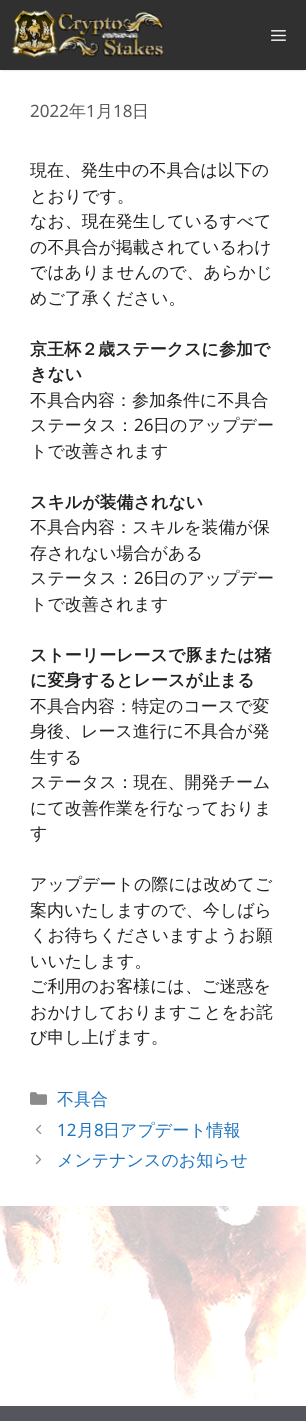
#include <cairo.h>
#include <math.h>
#include <stddef.h>


static void round_rect(cairo_t *cr, double x, double y, double w, double h, double r) {
    cairo_new_sub_path(cr);
    cairo_arc(cr, x + w - r, y + h - r, r, 0, M_PI / 2);
    cairo_arc(cr, x + r, y + h - r, r, M_PI / 2, M_PI);
    cairo_arc(cr, x + r, y + r, r, M_PI, 1.5 * M_PI);
    cairo_arc(cr, x + w - r, y + r, r, 1.5 * M_PI, 2 * M_PI);
    cairo_close_path(cr);
}

static void shadow(cairo_t *cr, double x, double y, double w, double h, double r, double blur, double alpha) {
    cairo_push_group_with_content(cr, CAIRO_CONTENT_ALPHA);
    cairo_set_operator(cr, CAIRO_OPERATOR_SOURCE);
    for (int i = 15; i >= -15 && fmin(w, h) + blur * i / 3 > 0; i -= 2) {
        double e = blur * i / 6;
        cairo_set_source_rgba(cr, 0, 0, 0, alpha * erfc((i - 1) / 8.5) / 2);
        round_rect(cr, x - e, y - e, w + 2 * e, h + 2 * e, fmax(0, fmin(r + e + blur * .6, fmin(w, h) / 2 + e)));
        cairo_fill(cr);
    }
    cairo_pattern_t *soft = cairo_pop_group(cr);
    cairo_mask(cr, soft);
    cairo_pattern_destroy(soft);
}

static void picture(cairo_t *cr, const char *path, double x, double y, double w, double h) {
    cairo_surface_t *image = cairo_image_surface_create_from_png(path);
    cairo_save(cr);
    cairo_set_source_surface(cr, image, x, y);
    cairo_rectangle(cr, x, y, w, h);
    cairo_fill(cr);
    cairo_restore(cr);
    cairo_surface_destroy(image);
}

int main(void) {
    cairo_surface_t *surface = cairo_image_surface_create(CAIRO_FORMAT_RGB24, 306, 1421);
    cairo_t *cr = cairo_create(surface);
    cairo_font_options_t *options = cairo_font_options_create();
    cairo_font_options_set_hint_metrics(options, CAIRO_HINT_METRICS_OFF);
    cairo_font_options_set_hint_style(options, CAIRO_HINT_STYLE_NONE);
    cairo_set_font_options(cr, options);
    cairo_set_miter_limit(cr, 4);
    cairo_set_source_rgb(cr, 1, 1, 1);
    cairo_paint(cr);
    picture(cr, "img1.png", 0, 1206, 306, 197);
    cairo_set_source_rgb(cr, 0, 0, 0);
    shadow(cr, 2, 4, 302, 66, 0, 1, 0.2);
    cairo_set_source_rgb(cr, 0.188, 0.188, 0.188);
    cairo_rectangle(cr, 0, 0, 306, 70);
    cairo_fill(cr);
    picture(cr, "img2.png", 11, 10, 153, 49);
    picture(cr, "img3.png", 271, 30, 15, 11);
    cairo_select_font_face(cr, "Noto Sans", CAIRO_FONT_SLANT_NORMAL, CAIRO_FONT_WEIGHT_NORMAL);
    cairo_set_font_size(cr, 17);
    cairo_set_source_rgb(cr, 0.349, 0.349, 0.349);
    cairo_move_to(cr, 30, 117);
    cairo_show_text(cr, "2022");
    cairo_select_font_face(cr, "WenQuanYi Zen Hei Medium", CAIRO_FONT_SLANT_NORMAL, CAIRO_FONT_WEIGHT_NORMAL);
    cairo_move_to(cr, 69, 117);
    cairo_show_text(cr, "年");
    cairo_select_font_face(cr, "Noto Sans", CAIRO_FONT_SLANT_NORMAL, CAIRO_FONT_WEIGHT_NORMAL);
    cairo_move_to(cr, 86, 117);
    cairo_show_text(cr, "1");
    cairo_select_font_face(cr, "WenQuanYi Zen Hei Medium", CAIRO_FONT_SLANT_NORMAL, CAIRO_FONT_WEIGHT_NORMAL);
    cairo_move_to(cr, 96, 117);
    cairo_show_text(cr, "月");
    cairo_select_font_face(cr, "Noto Sans", CAIRO_FONT_SLANT_NORMAL, CAIRO_FONT_WEIGHT_NORMAL);
    cairo_move_to(cr, 113, 117);
    cairo_show_text(cr, "18");
    cairo_select_font_face(cr, "WenQuanYi Zen Hei Medium", CAIRO_FONT_SLANT_NORMAL, CAIRO_FONT_WEIGHT_NORMAL);
    cairo_move_to(cr, 132, 117);
    cairo_show_text(cr, "日");
    cairo_set_source_rgb(cr, 0.133, 0.133, 0.133);
    cairo_move_to(cr, 30, 176);
    cairo_show_text(cr, "現在、発生中の不具合は以下の");
    cairo_move_to(cr, 30, 202);
    cairo_show_text(cr, "とおりです。");
    cairo_move_to(cr, 30, 227);
    cairo_show_text(cr, "なお、現在発生しているすべて");
    cairo_move_to(cr, 30, 253);
    cairo_show_text(cr, "の不具合が掲載されているわけ");
    cairo_move_to(cr, 30, 278);
    cairo_show_text(cr, "ではありませんので、あらかじ");
    cairo_move_to(cr, 30, 304);
    cairo_show_text(cr, "めご了承ください。");
    cairo_select_font_face(cr, "WenQuanYi Zen Hei", CAIRO_FONT_SLANT_NORMAL, CAIRO_FONT_WEIGHT_BOLD);
    cairo_move_to(cr, 30, 355);
    cairo_show_text(cr, "京王杯２歳ステークスに参加で");
    cairo_move_to(cr, 30, 380);
    cairo_show_text(cr, "きない");
    cairo_select_font_face(cr, "WenQuanYi Zen Hei Medium", CAIRO_FONT_SLANT_NORMAL, CAIRO_FONT_WEIGHT_NORMAL);
    cairo_move_to(cr, 30, 406);
    cairo_show_text(cr, "不具合内容：参加条件に不具合");
    cairo_move_to(cr, 30, 431);
    cairo_show_text(cr, "ステータス：");
    cairo_select_font_face(cr, "Noto Sans", CAIRO_FONT_SLANT_NORMAL, CAIRO_FONT_WEIGHT_NORMAL);
    cairo_move_to(cr, 134, 431);
    cairo_show_text(cr, "26");
    cairo_select_font_face(cr, "WenQuanYi Zen Hei Medium", CAIRO_FONT_SLANT_NORMAL, CAIRO_FONT_WEIGHT_NORMAL);
    cairo_move_to(cr, 153, 431);
    cairo_show_text(cr, "日のアップデー");
    cairo_move_to(cr, 30, 457);
    cairo_show_text(cr, "トで改善されます");
    cairo_select_font_face(cr, "WenQuanYi Zen Hei", CAIRO_FONT_SLANT_NORMAL, CAIRO_FONT_WEIGHT_BOLD);
    cairo_move_to(cr, 30, 508);
    cairo_show_text(cr, "スキルが装備されない");
    cairo_select_font_face(cr, "WenQuanYi Zen Hei Medium", CAIRO_FONT_SLANT_NORMAL, CAIRO_FONT_WEIGHT_NORMAL);
    cairo_move_to(cr, 30, 533);
    cairo_show_text(cr, "不具合内容：スキルを装備が保");
    cairo_move_to(cr, 30, 559);
    cairo_show_text(cr, "存されない場合がある");
    cairo_move_to(cr, 30, 584);
    cairo_show_text(cr, "ステータス：");
    cairo_select_font_face(cr, "Noto Sans", CAIRO_FONT_SLANT_NORMAL, CAIRO_FONT_WEIGHT_NORMAL);
    cairo_move_to(cr, 134, 584);
    cairo_show_text(cr, "26");
    cairo_select_font_face(cr, "WenQuanYi Zen Hei Medium", CAIRO_FONT_SLANT_NORMAL, CAIRO_FONT_WEIGHT_NORMAL);
    cairo_move_to(cr, 153, 584);
    cairo_show_text(cr, "日のアップデー");
    cairo_move_to(cr, 30, 610);
    cairo_show_text(cr, "トで改善されます");
    cairo_select_font_face(cr, "WenQuanYi Zen Hei", CAIRO_FONT_SLANT_NORMAL, CAIRO_FONT_WEIGHT_BOLD);
    cairo_move_to(cr, 30, 661);
    cairo_show_text(cr, "ストーリーレースで豚または猪");
    cairo_move_to(cr, 30, 686);
    cairo_show_text(cr, "に変身するとレースが止まる");
    cairo_select_font_face(cr, "WenQuanYi Zen Hei Medium", CAIRO_FONT_SLANT_NORMAL, CAIRO_FONT_WEIGHT_NORMAL);
    cairo_move_to(cr, 30, 712);
    cairo_show_text(cr, "不具合内容：特定のコースで変");
    cairo_move_to(cr, 30, 737);
    cairo_show_text(cr, "身後、レース進行に不具合が発");
    cairo_move_to(cr, 30, 763);
    cairo_show_text(cr, "生する");
    cairo_move_to(cr, 30, 788);
    cairo_show_text(cr, "ステータス：現在、開発チーム");
    cairo_move_to(cr, 30, 814);
    cairo_show_text(cr, "にて改善作業を行なっておりま");
    cairo_move_to(cr, 30, 839);
    cairo_show_text(cr, "す");
    cairo_move_to(cr, 30, 890);
    cairo_show_text(cr, "アップデートの際には改めてご");
    cairo_move_to(cr, 30, 916);
    cairo_show_text(cr, "案内いたしますので、今しばら");
    cairo_move_to(cr, 30, 941);
    cairo_show_text(cr, "くお待ちくださいますようお願");
    cairo_move_to(cr, 30, 967);
    cairo_show_text(cr, "いいたします。");
    cairo_move_to(cr, 30, 992);
    cairo_show_text(cr, "ご利用のお客様には、ご迷惑を");
    cairo_move_to(cr, 30, 1018);
    cairo_show_text(cr, "おかけしておりますことをお詫");
    cairo_move_to(cr, 30, 1043);
    cairo_show_text(cr, "び申し上げます。");
    picture(cr, "img4.png", 30, 1092, 17, 13);
    cairo_set_source_rgb(cr, 0.118, 0.451, 0.745);
    cairo_move_to(cr, 57, 1105);
    cairo_show_text(cr, "不具合");
    picture(cr, "img5.png", 35, 1124, 7, 11);
    cairo_select_font_face(cr, "Noto Sans", CAIRO_FONT_SLANT_NORMAL, CAIRO_FONT_WEIGHT_NORMAL);
    cairo_move_to(cr, 57, 1136);
    cairo_show_text(cr, "12");
    cairo_select_font_face(cr, "WenQuanYi Zen Hei Medium", CAIRO_FONT_SLANT_NORMAL, CAIRO_FONT_WEIGHT_NORMAL);
    cairo_move_to(cr, 77, 1136);
    cairo_show_text(cr, "月");
    cairo_select_font_face(cr, "Noto Sans", CAIRO_FONT_SLANT_NORMAL, CAIRO_FONT_WEIGHT_NORMAL);
    cairo_move_to(cr, 94, 1136);
    cairo_show_text(cr, "8");
    cairo_select_font_face(cr, "WenQuanYi Zen Hei Medium", CAIRO_FONT_SLANT_NORMAL, CAIRO_FONT_WEIGHT_NORMAL);
    cairo_move_to(cr, 103, 1136);
    cairo_show_text(cr, "日アプデート情報");
    picture(cr, "img6.png", 35, 1154, 7, 11);
    cairo_move_to(cr, 57, 1166);
    cairo_show_text(cr, "メンテナンスのお知らせ");
    cairo_set_source_rgb(cr, 0.333, 0.333, 0.369);
    cairo_rectangle(cr, 0, 1406, 306, 15);
    cairo_fill(cr);
    cairo_surface_write_to_png(surface, "page.png");
    cairo_font_options_destroy(options);
    cairo_destroy(cr);
    cairo_surface_destroy(surface);
    return 0;
}
